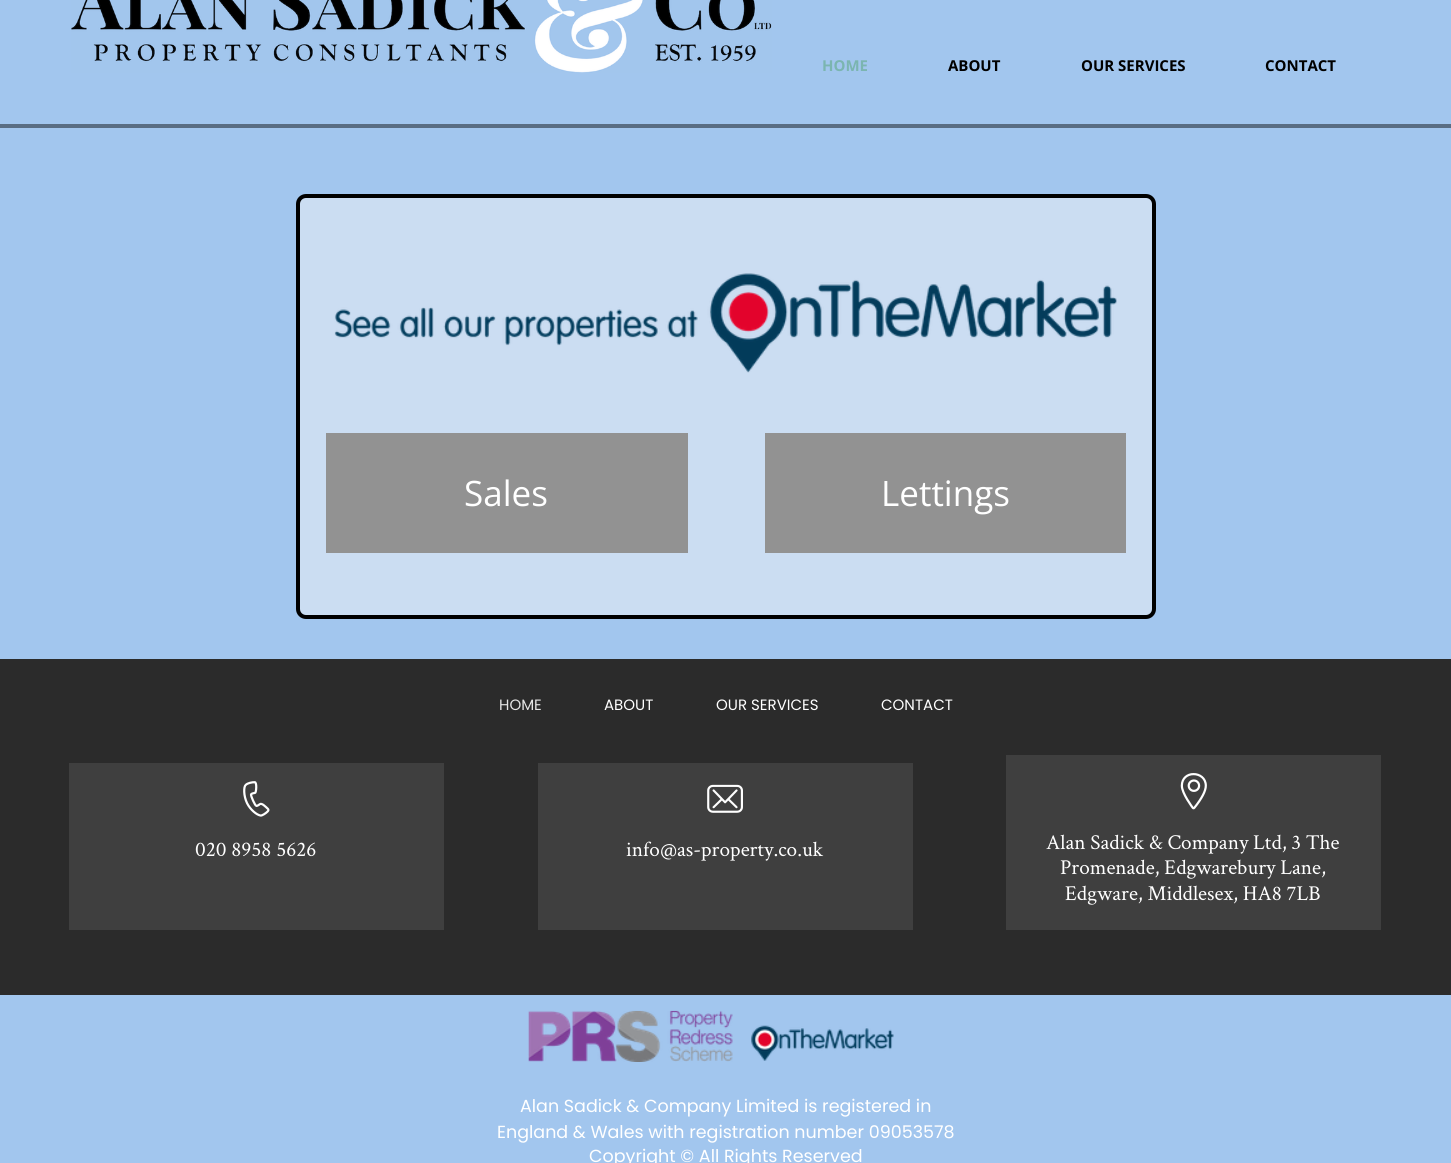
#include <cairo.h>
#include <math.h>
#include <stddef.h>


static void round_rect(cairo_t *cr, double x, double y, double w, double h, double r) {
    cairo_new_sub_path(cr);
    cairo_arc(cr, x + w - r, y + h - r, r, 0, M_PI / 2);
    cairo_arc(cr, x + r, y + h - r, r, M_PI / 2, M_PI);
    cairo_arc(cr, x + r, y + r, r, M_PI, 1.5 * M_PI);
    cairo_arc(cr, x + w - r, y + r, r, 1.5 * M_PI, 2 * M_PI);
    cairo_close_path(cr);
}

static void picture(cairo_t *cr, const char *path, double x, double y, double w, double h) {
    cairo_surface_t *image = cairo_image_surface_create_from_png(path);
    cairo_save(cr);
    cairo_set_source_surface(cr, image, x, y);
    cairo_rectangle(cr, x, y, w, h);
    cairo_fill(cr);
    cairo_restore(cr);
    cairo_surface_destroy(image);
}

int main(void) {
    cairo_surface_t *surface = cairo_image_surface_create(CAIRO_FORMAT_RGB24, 1451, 1163);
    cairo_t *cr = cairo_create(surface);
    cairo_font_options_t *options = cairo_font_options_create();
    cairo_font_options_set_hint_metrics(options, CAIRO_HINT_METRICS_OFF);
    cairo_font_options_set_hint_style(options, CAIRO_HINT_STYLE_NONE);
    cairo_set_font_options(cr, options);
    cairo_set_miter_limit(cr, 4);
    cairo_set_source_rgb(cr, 0.635, 0.776, 0.933);
    cairo_paint(cr);
    cairo_set_source_rgb(cr, 0.349, 0.427, 0.514);
    cairo_rectangle(cr, 0, 124, 1451, 4);
    cairo_fill(cr);
    picture(cr, "img1.png", 71, 0, 701, 73);
    cairo_select_font_face(cr, "Open Sans", CAIRO_FONT_SLANT_NORMAL, CAIRO_FONT_WEIGHT_BOLD);
    cairo_set_font_size(cr, 15);
    cairo_set_source_rgb(cr, 0.482, 0.71, 0.69);
    cairo_move_to(cr, 822, 71);
    cairo_show_text(cr, "HOME");
    cairo_set_source_rgb(cr, 0, 0, 0);
    cairo_move_to(cr, 948, 71);
    cairo_show_text(cr, "ABOUT");
    cairo_move_to(cr, 1081, 71);
    cairo_show_text(cr, "OUR SERVICES");
    cairo_move_to(cr, 1265, 71);
    cairo_show_text(cr, "CONTACT");
    cairo_set_source_rgb(cr, 0.796, 0.867, 0.949);
    round_rect(cr, 298, 196, 856, 421, 8);
    cairo_fill_preserve(cr);
    cairo_set_source_rgb(cr, 0, 0, 0);
    cairo_set_line_width(cr, 4);
    cairo_stroke(cr);
    picture(cr, "img2.png", 334, 273, 783, 100);
    cairo_set_source_rgb(cr, 0.573, 0.573, 0.573);
    cairo_rectangle(cr, 326, 433, 362, 120);
    cairo_fill(cr);
    cairo_select_font_face(cr, "Open Sans", CAIRO_FONT_SLANT_NORMAL, CAIRO_FONT_WEIGHT_NORMAL);
    cairo_set_font_size(cr, 35);
    cairo_set_source_rgb(cr, 1, 1, 1);
    cairo_move_to(cr, 464, 506);
    cairo_show_text(cr, "Sales");
    cairo_set_source_rgb(cr, 0.573, 0.573, 0.573);
    cairo_rectangle(cr, 765, 433, 361, 120);
    cairo_fill(cr);
    cairo_set_source_rgb(cr, 1, 1, 1);
    cairo_move_to(cr, 881, 506);
    cairo_show_text(cr, "Lettings");
    cairo_set_source_rgb(cr, 0.169, 0.169, 0.169);
    cairo_rectangle(cr, 0, 659, 1451, 336);
    cairo_fill(cr);
    cairo_select_font_face(cr, "Poppins", CAIRO_FONT_SLANT_NORMAL, CAIRO_FONT_WEIGHT_NORMAL);
    cairo_set_font_size(cr, 15);
    cairo_set_source_rgb(cr, 0.902, 0.902, 0.902);
    cairo_move_to(cr, 499, 710);
    cairo_show_text(cr, "HOME");
    cairo_set_source_rgb(cr, 1, 1, 1);
    cairo_move_to(cr, 604, 710);
    cairo_show_text(cr, "ABOUT");
    cairo_move_to(cr, 716, 710);
    cairo_show_text(cr, "OUR SERVICES");
    cairo_move_to(cr, 881, 710);
    cairo_show_text(cr, "CONTACT");
    cairo_set_source_rgb(cr, 0.247, 0.247, 0.247);
    cairo_rectangle(cr, 69, 763, 375, 167);
    cairo_fill(cr);
    picture(cr, "img3.png", 243, 781, 27, 36);
    cairo_select_font_face(cr, "Crimson Text", CAIRO_FONT_SLANT_NORMAL, CAIRO_FONT_WEIGHT_NORMAL);
    cairo_set_font_size(cr, 21.25);
    cairo_set_source_rgb(cr, 1, 1, 1);
    cairo_move_to(cr, 195, 856);
    cairo_show_text(cr, "020 8958 5626");
    cairo_set_source_rgb(cr, 0.247, 0.247, 0.247);
    cairo_rectangle(cr, 538, 763, 375, 167);
    cairo_fill(cr);
    picture(cr, "img4.png", 707, 784, 36, 29);
    cairo_set_source_rgb(cr, 1, 1, 1);
    cairo_move_to(cr, 626, 856);
    cairo_show_text(cr, "info@as-property.co.uk");
    cairo_set_source_rgb(cr, 0.247, 0.247, 0.247);
    cairo_rectangle(cr, 1006, 755, 375, 175);
    cairo_fill(cr);
    picture(cr, "img5.png", 1180, 773, 27, 37);
    cairo_set_source_rgb(cr, 1, 1, 1);
    cairo_move_to(cr, 1046, 849);
    cairo_show_text(cr, "Alan Sadick & Company Ltd, 3 The");
    cairo_move_to(cr, 1060, 874);
    cairo_show_text(cr, "Promenade, Edgwarebury Lane,");
    cairo_move_to(cr, 1065, 900);
    cairo_show_text(cr, "Edgware, Middlesex, HA8 7LB");
    picture(cr, "img6.png", 528, 1010, 205, 52);
    picture(cr, "img7.png", 751, 1025, 143, 36);
    cairo_select_font_face(cr, "Poppins", CAIRO_FONT_SLANT_NORMAL, CAIRO_FONT_WEIGHT_NORMAL);
    cairo_set_font_size(cr, 17.5);
    cairo_move_to(cr, 520, 1112);
    cairo_show_text(cr, "Alan Sadick & Company Limited is registered in");
    cairo_move_to(cr, 497, 1138);
    cairo_show_text(cr, "England & Wales with registration number 09053578");
    cairo_move_to(cr, 589, 1162);
    cairo_show_text(cr, "Copyright © All Rights Reserved");
    cairo_surface_write_to_png(surface, "page.png");
    cairo_font_options_destroy(options);
    cairo_destroy(cr);
    cairo_surface_destroy(surface);
    return 0;
}
